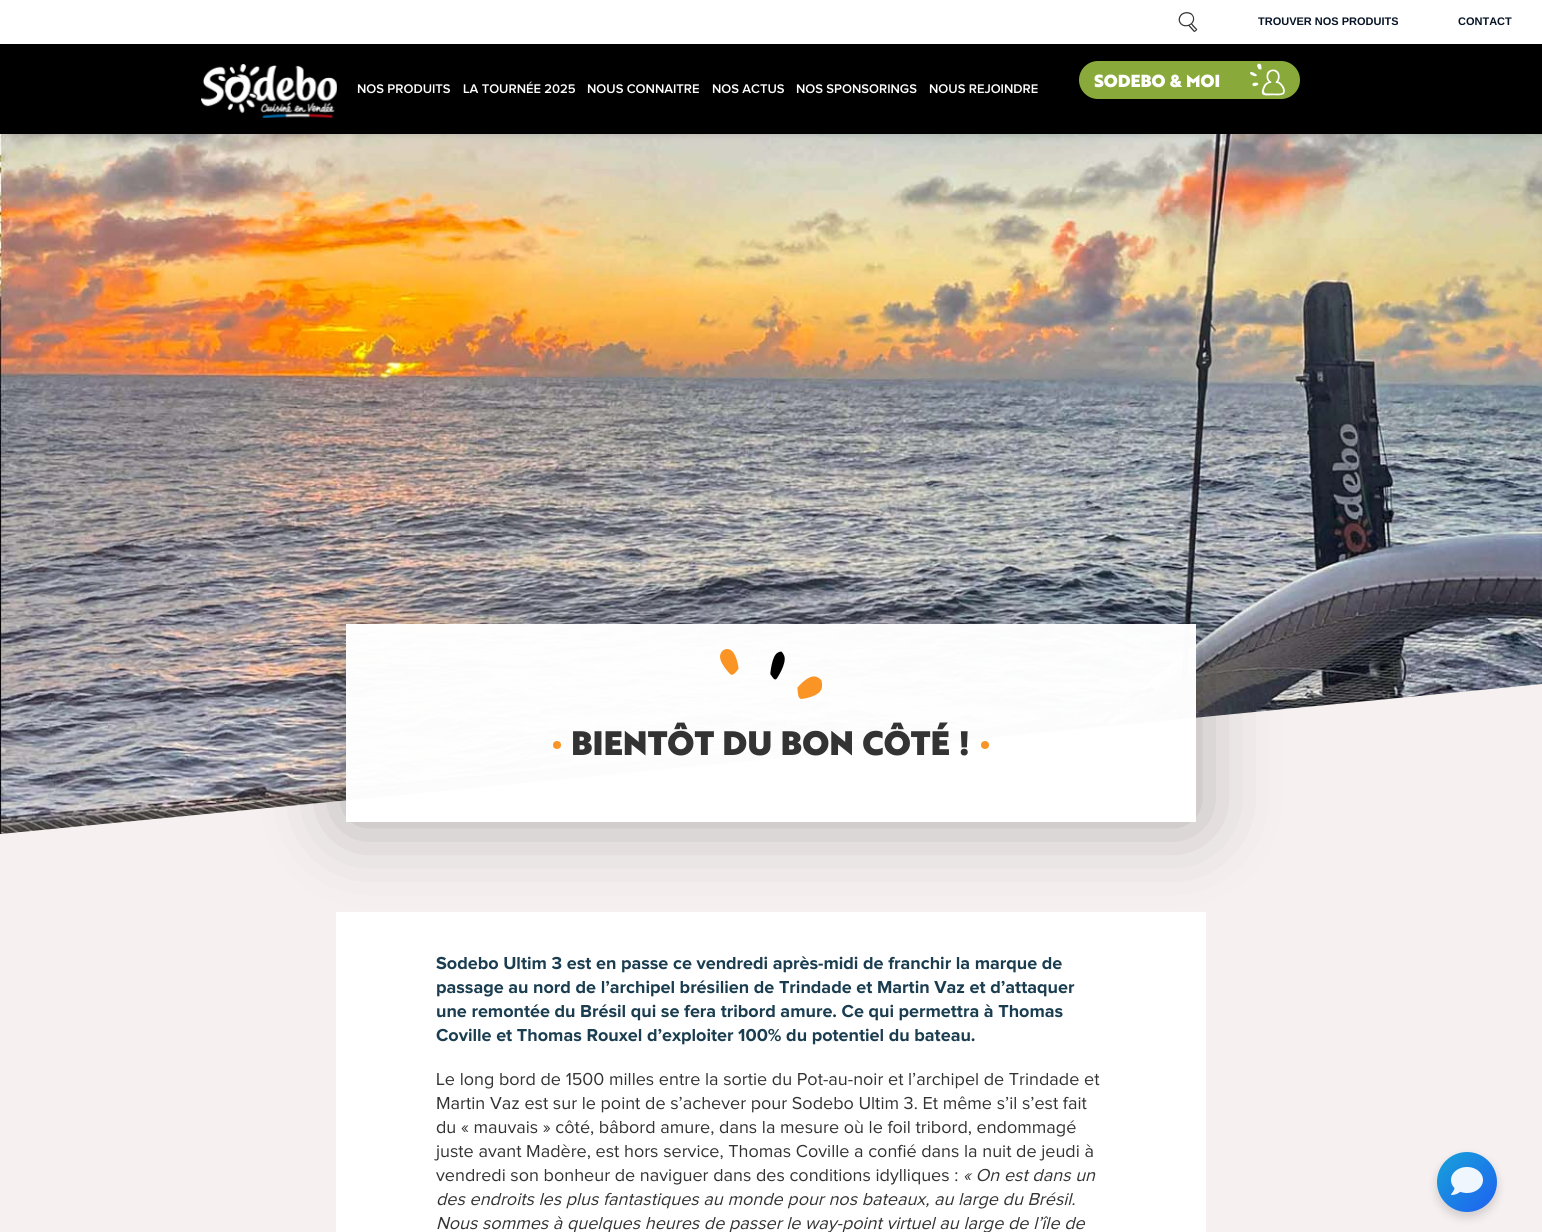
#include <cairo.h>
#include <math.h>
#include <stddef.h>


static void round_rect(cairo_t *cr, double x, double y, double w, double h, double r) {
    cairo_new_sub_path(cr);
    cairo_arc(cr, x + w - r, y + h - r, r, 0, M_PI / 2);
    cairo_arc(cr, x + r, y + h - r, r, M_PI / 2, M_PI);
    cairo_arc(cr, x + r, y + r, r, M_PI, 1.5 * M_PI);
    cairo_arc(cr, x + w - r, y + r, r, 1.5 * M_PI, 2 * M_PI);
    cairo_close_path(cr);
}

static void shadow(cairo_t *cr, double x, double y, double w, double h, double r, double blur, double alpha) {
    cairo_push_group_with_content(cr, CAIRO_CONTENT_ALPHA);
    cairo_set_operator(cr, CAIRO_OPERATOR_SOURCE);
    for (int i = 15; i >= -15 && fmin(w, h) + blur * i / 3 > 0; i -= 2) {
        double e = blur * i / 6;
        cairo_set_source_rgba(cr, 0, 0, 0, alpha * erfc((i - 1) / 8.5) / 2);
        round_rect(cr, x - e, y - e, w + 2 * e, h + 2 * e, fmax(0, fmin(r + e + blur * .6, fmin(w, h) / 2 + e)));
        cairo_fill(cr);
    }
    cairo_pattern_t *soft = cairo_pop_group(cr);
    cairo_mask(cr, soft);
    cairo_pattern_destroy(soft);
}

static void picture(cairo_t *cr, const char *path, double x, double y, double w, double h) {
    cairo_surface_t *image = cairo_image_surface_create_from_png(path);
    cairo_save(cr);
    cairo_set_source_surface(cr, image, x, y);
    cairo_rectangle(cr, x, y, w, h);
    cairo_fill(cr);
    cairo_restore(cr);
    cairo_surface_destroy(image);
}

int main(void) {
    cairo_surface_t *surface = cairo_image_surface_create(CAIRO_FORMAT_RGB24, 1542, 1232);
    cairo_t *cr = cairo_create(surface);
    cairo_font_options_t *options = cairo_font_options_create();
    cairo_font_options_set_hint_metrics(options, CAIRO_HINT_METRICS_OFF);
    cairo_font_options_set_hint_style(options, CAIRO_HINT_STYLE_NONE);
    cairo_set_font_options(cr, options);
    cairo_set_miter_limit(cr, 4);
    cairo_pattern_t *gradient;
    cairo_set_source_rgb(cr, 0.961, 0.945, 0.941);
    cairo_paint(cr);
    picture(cr, "img4.png", 0, 134, 1542, 700);
    cairo_set_source_rgb(cr, 0, 0, 0);
    shadow(cr, 0, 2, 1542, 134, 0, 2.5, 0.1);
    cairo_set_source_rgb(cr, 0, 0, 0);
    cairo_rectangle(cr, 0, 44, 1542, 90);
    cairo_fill(cr);
    cairo_set_source_rgb(cr, 1, 1, 1);
    cairo_rectangle(cr, 0, 0, 1542, 44);
    cairo_fill(cr);
    picture(cr, "img1.png", 1178, 12, 20, 20);
    cairo_select_font_face(cr, "Liberation Sans", CAIRO_FONT_SLANT_NORMAL, CAIRO_FONT_WEIGHT_BOLD);
    cairo_set_font_size(cr, 11);
    cairo_set_source_rgb(cr, 0.031, 0.082, 0.145);
    cairo_move_to(cr, 1258, 25);
    cairo_show_text(cr, "TROUVER NOS PRODUITS");
    cairo_move_to(cr, 1458, 25);
    cairo_show_text(cr, "CONTACT");
    picture(cr, "img2.png", 201, 64, 136, 54);
    cairo_select_font_face(cr, "Proxima Nova SemiBold", CAIRO_FONT_SLANT_NORMAL, CAIRO_FONT_WEIGHT_NORMAL);
    cairo_set_font_size(cr, 13);
    cairo_set_source_rgb(cr, 1, 1, 1);
    cairo_move_to(cr, 357, 93);
    cairo_show_text(cr, "NOS PRODUITS");
    cairo_move_to(cr, 463, 93);
    cairo_show_text(cr, "LA TOURNÉE 2025");
    cairo_move_to(cr, 587, 93);
    cairo_show_text(cr, "NOUS CONNAITRE");
    cairo_move_to(cr, 712, 93);
    cairo_show_text(cr, "NOS ACTUS");
    cairo_move_to(cr, 796, 93);
    cairo_show_text(cr, "NOS SPONSORINGS");
    cairo_move_to(cr, 929, 93);
    cairo_show_text(cr, "NOUS REJOINDRE");
    cairo_set_source_rgb(cr, 0.537, 0.667, 0.231);
    round_rect(cr, 1079, 61, 221, 38, 19);
    cairo_fill(cr);
    cairo_select_font_face(cr, "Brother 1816 Black", CAIRO_FONT_SLANT_NORMAL, CAIRO_FONT_WEIGHT_NORMAL);
    cairo_set_font_size(cr, 17);
    cairo_set_source_rgb(cr, 1, 1, 1);
    cairo_move_to(cr, 1094, 87);
    cairo_show_text(cr, "SODEBO & MOI");
    picture(cr, "img3.png", 1250, 63, 35, 33);
    cairo_set_source_rgb(cr, 0.961, 0.945, 0.941);
    cairo_new_path(cr);
    cairo_move_to(cr, 1542, 684);
    cairo_line_to(cr, 1542, 834);
    cairo_line_to(cr, 0, 834);
    cairo_close_path(cr);
    cairo_fill(cr);
    cairo_set_source_rgb(cr, 1, 1, 1);
    cairo_rectangle(cr, 336, 912, 870, 320);
    cairo_fill(cr);
    cairo_save(cr);
    cairo_set_fill_rule(cr, CAIRO_FILL_RULE_EVEN_ODD);
    cairo_new_path(cr);
    cairo_move_to(cr, 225, 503);
    cairo_line_to(cr, 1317, 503);
    cairo_line_to(cr, 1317, 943);
    cairo_line_to(cr, 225, 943);
    cairo_close_path(cr);
    cairo_move_to(cr, 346, 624);
    cairo_line_to(cr, 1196, 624);
    cairo_line_to(cr, 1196, 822);
    cairo_line_to(cr, 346, 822);
    cairo_close_path(cr);
    cairo_clip(cr);
    cairo_set_source_rgb(cr, 0, 0, 0);
    shadow(cr, 346, 624, 850, 198, 0, 40, 0.3);
    cairo_restore(cr);
    cairo_set_source_rgba(cr, 1, 1, 1, 0.98);
    cairo_rectangle(cr, 346, 624, 850, 198);
    cairo_fill(cr);
    picture(cr, "img5.png", 720, 649, 102, 50);
    cairo_set_source_rgb(cr, 0.976, 0.58, 0.149);
    cairo_arc(cr, 557, 745, 4, 0, 2 * M_PI);
    cairo_fill(cr);
    cairo_set_font_size(cr, 33);
    cairo_set_source_rgb(cr, 0.2, 0.2, 0.2);
    cairo_move_to(cr, 571, 755);
    cairo_show_text(cr, "BIENTÔT DU BON CÔTÉ !");
    cairo_set_source_rgb(cr, 0.976, 0.58, 0.149);
    cairo_new_path(cr);
    cairo_arc(cr, 985, 745, 4, 0, 2 * M_PI);
    cairo_fill(cr);
    cairo_select_font_face(cr, "Proxima Nova", CAIRO_FONT_SLANT_NORMAL, CAIRO_FONT_WEIGHT_BOLD);
    cairo_set_font_size(cr, 18);
    cairo_set_source_rgb(cr, 0.102, 0.239, 0.314);
    cairo_move_to(cr, 436, 969);
    cairo_show_text(cr, "Sodebo Ultim 3 est en passe ce vendredi après-midi de franchir la marque de");
    cairo_move_to(cr, 436, 993);
    cairo_show_text(cr, "passage au nord de l’archipel brésilien de Trindade et Martin Vaz et d’attaquer");
    cairo_move_to(cr, 436, 1017);
    cairo_show_text(cr, "une remontée du Brésil qui se fera tribord amure. Ce qui permettra à Thomas");
    cairo_move_to(cr, 436, 1041);
    cairo_show_text(cr, "Coville et Thomas Rouxel d’exploiter 100% du potentiel du bateau.");
    cairo_select_font_face(cr, "Proxima Nova", CAIRO_FONT_SLANT_NORMAL, CAIRO_FONT_WEIGHT_NORMAL);
    cairo_set_source_rgb(cr, 0.2, 0.2, 0.2);
    cairo_move_to(cr, 436, 1085);
    cairo_show_text(cr, "Le long bord de 1500 milles entre la sortie du Pot-au-noir et l’archipel de Trindade et");
    cairo_move_to(cr, 436, 1109);
    cairo_show_text(cr, "Martin Vaz est sur le point de s’achever pour Sodebo Ultim 3. Et même s’il s’est fait");
    cairo_move_to(cr, 436, 1133);
    cairo_show_text(cr, "du « mauvais » côté, bâbord amure, dans la mesure où le foil tribord, endommagé");
    cairo_move_to(cr, 436, 1157);
    cairo_show_text(cr, "juste avant Madère, est hors service, Thomas Coville a confié dans la nuit de jeudi à");
    cairo_move_to(cr, 436, 1181);
    cairo_show_text(cr, "vendredi son bonheur de naviguer dans des conditions idylliques :");
    cairo_select_font_face(cr, "Proxima Nova", CAIRO_FONT_SLANT_ITALIC, CAIRO_FONT_WEIGHT_NORMAL);
    cairo_move_to(cr, 963, 1181);
    cairo_show_text(cr, "« On est dans un");
    cairo_move_to(cr, 436, 1205);
    cairo_show_text(cr, "des endroits les plus fantastiques au monde pour nos bateaux, au large du Brésil.");
    cairo_move_to(cr, 436, 1229);
    cairo_show_text(cr, "Nous sommes à quelques heures de passer le way-point virtuel au large de l’île de");
    cairo_set_source_rgb(cr, 0, 0, 0);
    shadow(cr, 1437, 1157, 60, 60, 30, 5, 0.16);
    gradient = cairo_pattern_create_linear(1437, 1152, 1497, 1212);
    cairo_pattern_add_color_stop_rgba(gradient, 0, 0.09, 0.639, 0.847, 1);
    cairo_pattern_add_color_stop_rgba(gradient, 1, 0.122, 0.376, 0.949, 1);
    cairo_set_source(cr, gradient);
    cairo_pattern_destroy(gradient);
    cairo_arc(cr, 1467, 1182, 30, 0, 2 * M_PI);
    cairo_fill(cr);
    picture(cr, "img6.png", 1451, 1167, 32, 28);
    cairo_surface_write_to_png(surface, "page.png");
    cairo_font_options_destroy(options);
    cairo_destroy(cr);
    cairo_surface_destroy(surface);
    return 0;
}
